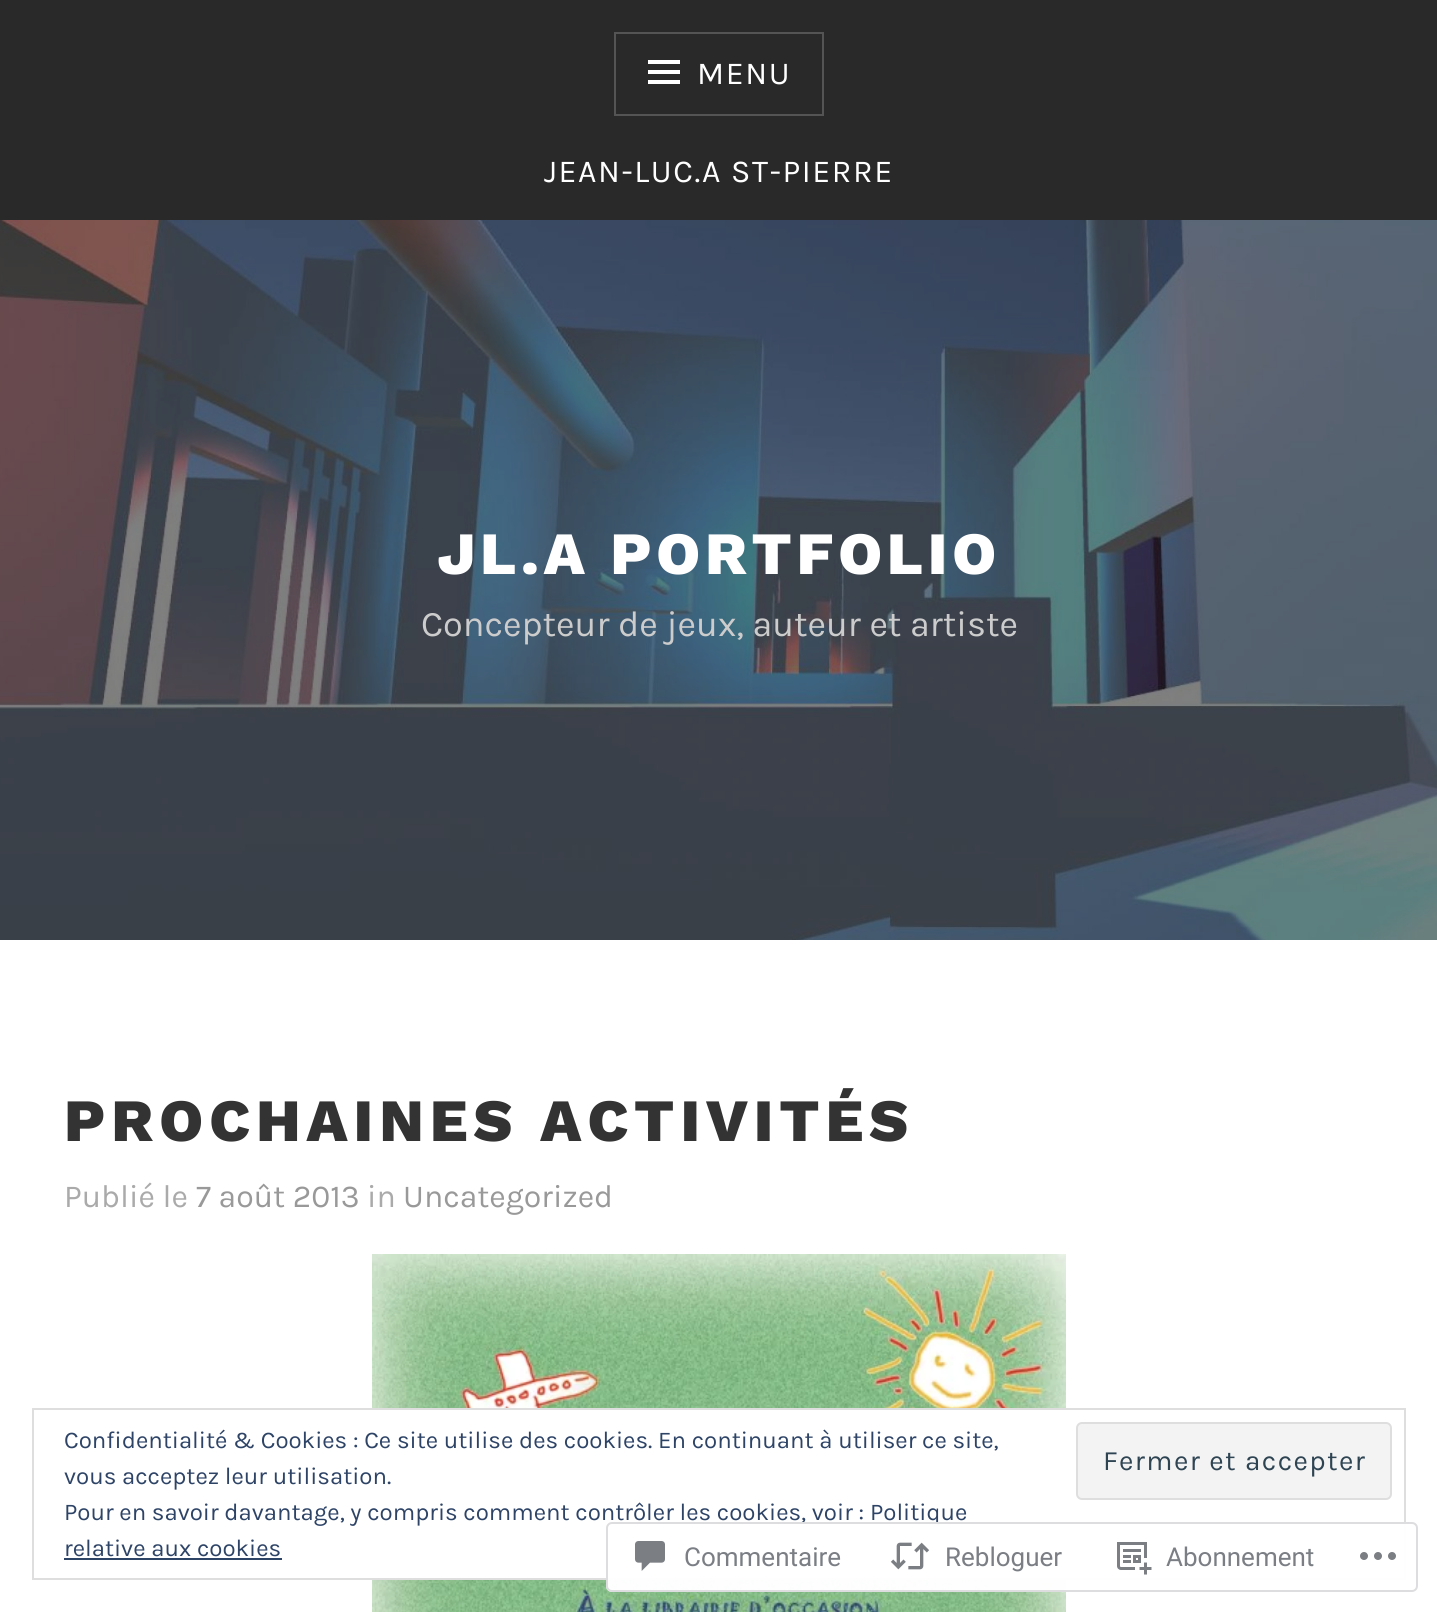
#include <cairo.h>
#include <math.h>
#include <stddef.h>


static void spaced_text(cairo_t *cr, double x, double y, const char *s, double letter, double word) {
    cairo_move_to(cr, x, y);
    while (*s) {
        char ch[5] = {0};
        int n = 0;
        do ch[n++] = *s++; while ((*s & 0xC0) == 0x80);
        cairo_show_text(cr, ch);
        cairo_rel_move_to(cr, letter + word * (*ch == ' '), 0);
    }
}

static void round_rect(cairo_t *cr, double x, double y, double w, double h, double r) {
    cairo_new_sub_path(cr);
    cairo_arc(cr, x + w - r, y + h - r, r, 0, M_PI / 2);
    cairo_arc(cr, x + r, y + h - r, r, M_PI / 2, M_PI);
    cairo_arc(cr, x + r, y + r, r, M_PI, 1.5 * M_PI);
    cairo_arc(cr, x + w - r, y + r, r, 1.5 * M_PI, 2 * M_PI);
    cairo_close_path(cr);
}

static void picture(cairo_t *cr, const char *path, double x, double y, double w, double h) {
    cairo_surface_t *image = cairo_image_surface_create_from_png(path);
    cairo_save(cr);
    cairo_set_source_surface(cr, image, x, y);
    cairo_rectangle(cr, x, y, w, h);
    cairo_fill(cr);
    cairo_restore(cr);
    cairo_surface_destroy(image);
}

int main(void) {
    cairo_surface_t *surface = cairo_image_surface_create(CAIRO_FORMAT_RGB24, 1437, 1612);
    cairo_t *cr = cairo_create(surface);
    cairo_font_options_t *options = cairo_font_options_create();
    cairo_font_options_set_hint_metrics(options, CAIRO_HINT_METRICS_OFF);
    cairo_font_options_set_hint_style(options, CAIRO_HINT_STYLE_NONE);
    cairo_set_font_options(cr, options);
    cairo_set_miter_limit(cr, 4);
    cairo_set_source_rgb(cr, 1, 1, 1);
    cairo_paint(cr);
    cairo_set_source_rgb(cr, 0.161, 0.161, 0.165);
    cairo_rectangle(cr, 0, 0, 1437, 220);
    cairo_fill(cr);
    cairo_rectangle(cr, 615, 33, 208, 82);
    cairo_set_source_rgb(cr, 0.329, 0.329, 0.333);
    cairo_stroke(cr);
    picture(cr, "img1.png", 648, 60, 32, 24);
    cairo_select_font_face(cr, "Karla", CAIRO_FONT_SLANT_NORMAL, CAIRO_FONT_WEIGHT_NORMAL);
    cairo_set_font_size(cr, 32);
    cairo_set_source_rgb(cr, 1, 1, 1);
    spaced_text(cr, 697, 84, "MENU", 1.6, 0);
    spaced_text(cr, 544, 182, "JEAN-LUC.A ST-PIERRE", 1.6, 0);
    picture(cr, "img2.png", 0, 220, 1437, 720);
    cairo_select_font_face(cr, "Work Sans ExtraBold", CAIRO_FONT_SLANT_NORMAL, CAIRO_FONT_WEIGHT_NORMAL);
    cairo_set_font_size(cr, 60);
    spaced_text(cr, 437, 574, "JL.A PORTFOLIO", 4.75, 0);
    cairo_select_font_face(cr, "Karla", CAIRO_FONT_SLANT_NORMAL, CAIRO_FONT_WEIGHT_NORMAL);
    cairo_set_font_size(cr, 36);
    cairo_set_source_rgb(cr, 0.8, 0.8, 0.8);
    cairo_move_to(cr, 421, 636);
    cairo_show_text(cr, "Concepteur de jeux, auteur et artiste");
    cairo_select_font_face(cr, "Work Sans ExtraBold", CAIRO_FONT_SLANT_NORMAL, CAIRO_FONT_WEIGHT_NORMAL);
    cairo_set_font_size(cr, 60);
    cairo_set_source_rgb(cr, 0.2, 0.2, 0.2);
    spaced_text(cr, 64, 1141, "PROCHAINES ACTIVITÉS", 6, 0);
    cairo_select_font_face(cr, "Karla", CAIRO_FONT_SLANT_NORMAL, CAIRO_FONT_WEIGHT_NORMAL);
    cairo_set_font_size(cr, 32);
    cairo_set_source_rgb(cr, 0.667, 0.667, 0.667);
    cairo_move_to(cr, 64, 1207);
    cairo_show_text(cr, "Publié le");
    cairo_set_source_rgb(cr, 0.6, 0.6, 0.6);
    cairo_move_to(cr, 196, 1207);
    cairo_show_text(cr, "7 août 2013");
    cairo_set_source_rgb(cr, 0.667, 0.667, 0.667);
    cairo_move_to(cr, 367, 1207);
    cairo_show_text(cr, "in");
    cairo_set_source_rgb(cr, 0.6, 0.6, 0.6);
    cairo_move_to(cr, 403, 1207);
    cairo_show_text(cr, "Uncategorized");
    picture(cr, "img3.png", 372, 1254, 694, 358);
    cairo_set_source_rgb(cr, 1, 1, 1);
    cairo_rectangle(cr, 372, 1410, 694, 168);
    cairo_fill(cr);
    cairo_rectangle(cr, 33, 1409, 1372, 170);
    cairo_set_source_rgb(cr, 0.871, 0.871, 0.871);
    cairo_stroke(cr);
    cairo_set_font_size(cr, 24);
    cairo_set_source_rgb(cr, 0.18, 0.267, 0.404);
    cairo_move_to(cr, 64, 1448);
    cairo_show_text(cr, "Confidentialité & Cookies : Ce site utilise des cookies. En continuant à utiliser ce site,");
    cairo_move_to(cr, 64, 1484);
    cairo_show_text(cr, "vous acceptez leur utilisation.");
    cairo_set_source_rgb(cr, 0.953, 0.953, 0.953);
    round_rect(cr, 1077, 1423, 314, 76, 5);
    cairo_fill_preserve(cr);
    cairo_set_source_rgb(cr, 0.871, 0.871, 0.871);
    cairo_stroke(cr);
    cairo_set_font_size(cr, 28);
    cairo_set_source_rgb(cr, 0.18, 0.267, 0.325);
    spaced_text(cr, 1103, 1470, "Fermer et accepter", 1.4, 0);
    cairo_set_font_size(cr, 24);
    cairo_set_source_rgb(cr, 0.18, 0.267, 0.404);
    cairo_move_to(cr, 64, 1520);
    cairo_show_text(cr, "Pour en savoir davantage, y compris comment contrôler les cookies, voir :");
    cairo_rectangle(cr, 870, 1522, 98, 2);
    cairo_fill(cr);
    cairo_move_to(cr, 870, 1520);
    cairo_show_text(cr, "Politique");
    cairo_move_to(cr, 64, 1556);
    cairo_show_text(cr, "relative aux cookies");
    cairo_rectangle(cr, 64, 1558, 218, 2);
    cairo_fill(cr);
    cairo_set_source_rgba(cr, 1, 1, 1, 0.98);
    round_rect(cr, 606, 1522, 812, 70, 6);
    cairo_fill(cr);
    round_rect(cr, 607, 1523, 810, 68, 5);
    cairo_set_source_rgba(cr, 0.863, 0.863, 0.871, 0.98);
    cairo_stroke(cr);
    picture(cr, "img4.png", 635, 1541, 30, 30);
    cairo_select_font_face(cr, "Roboto", CAIRO_FONT_SLANT_NORMAL, CAIRO_FONT_WEIGHT_NORMAL);
    cairo_set_font_size(cr, 26);
    cairo_set_source_rgb(cr, 0.482, 0.498, 0.522);
    cairo_move_to(cr, 684, 1566);
    cairo_show_text(cr, "Commentaire");
    picture(cr, "img5.png", 890, 1542, 40, 28);
    cairo_move_to(cr, 945, 1566);
    cairo_show_text(cr, "Rebloguer");
    picture(cr, "img6.png", 1117, 1542, 35, 33);
    cairo_move_to(cr, 1166, 1566);
    cairo_show_text(cr, "Abonnement");
    picture(cr, "img7.png", 1360, 1552, 36, 8);
    cairo_surface_write_to_png(surface, "page.png");
    cairo_font_options_destroy(options);
    cairo_destroy(cr);
    cairo_surface_destroy(surface);
    return 0;
}
